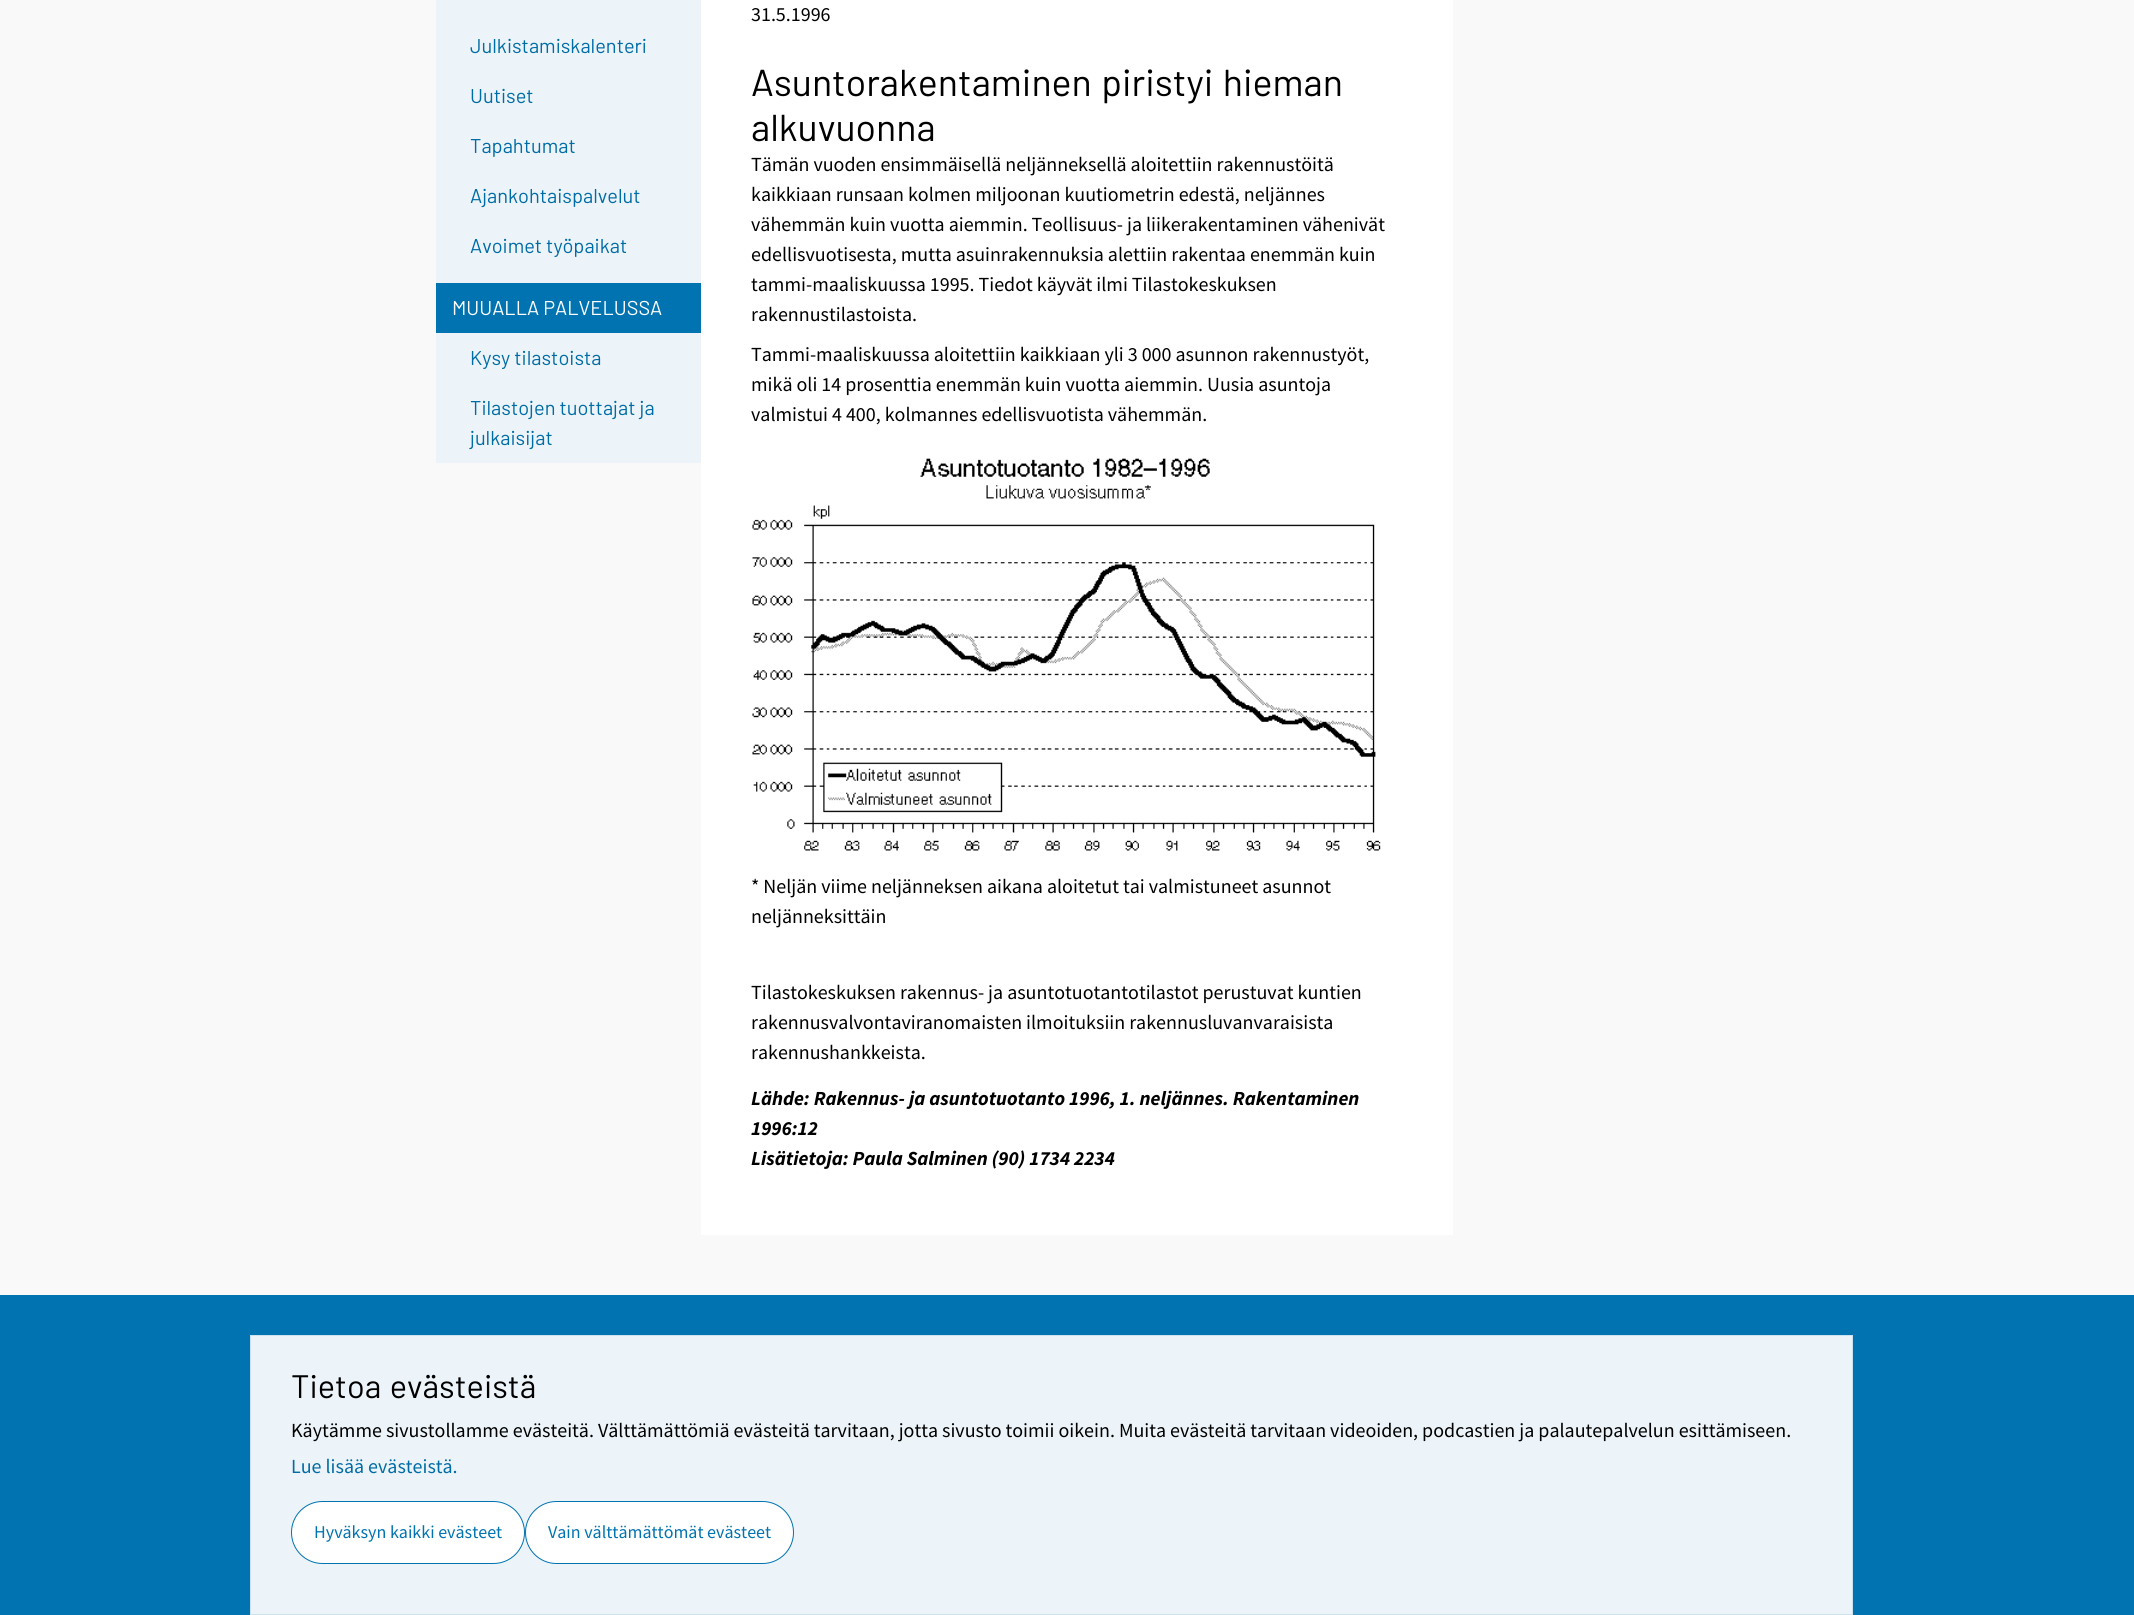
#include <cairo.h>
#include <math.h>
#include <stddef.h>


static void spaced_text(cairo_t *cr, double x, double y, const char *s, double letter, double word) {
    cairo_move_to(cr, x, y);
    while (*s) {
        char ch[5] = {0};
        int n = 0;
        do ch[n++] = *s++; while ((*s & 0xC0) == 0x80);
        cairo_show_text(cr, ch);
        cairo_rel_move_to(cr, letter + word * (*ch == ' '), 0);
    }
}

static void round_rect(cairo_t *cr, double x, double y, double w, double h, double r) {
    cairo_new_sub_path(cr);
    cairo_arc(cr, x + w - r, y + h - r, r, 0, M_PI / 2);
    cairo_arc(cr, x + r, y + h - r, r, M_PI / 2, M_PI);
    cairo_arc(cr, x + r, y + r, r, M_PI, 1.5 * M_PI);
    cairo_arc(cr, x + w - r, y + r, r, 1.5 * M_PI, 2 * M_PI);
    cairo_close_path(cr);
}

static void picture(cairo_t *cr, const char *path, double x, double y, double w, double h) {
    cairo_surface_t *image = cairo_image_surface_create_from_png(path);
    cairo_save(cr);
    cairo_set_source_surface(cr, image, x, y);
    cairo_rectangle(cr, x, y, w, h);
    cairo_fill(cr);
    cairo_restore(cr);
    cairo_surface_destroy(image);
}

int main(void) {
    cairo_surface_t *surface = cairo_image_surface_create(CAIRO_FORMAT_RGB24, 2134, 1615);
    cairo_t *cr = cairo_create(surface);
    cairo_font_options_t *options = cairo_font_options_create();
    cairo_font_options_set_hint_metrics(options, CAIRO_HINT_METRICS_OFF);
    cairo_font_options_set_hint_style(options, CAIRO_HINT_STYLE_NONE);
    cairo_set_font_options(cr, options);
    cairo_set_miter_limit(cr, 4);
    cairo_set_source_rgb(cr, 0.973, 0.973, 0.973);
    cairo_paint(cr);
    cairo_set_source_rgb(cr, 0.922, 0.957, 0.976);
    cairo_rectangle(cr, 436, 0, 265, 463);
    cairo_fill(cr);
    cairo_select_font_face(cr, "Barlow", CAIRO_FONT_SLANT_NORMAL, CAIRO_FONT_WEIGHT_NORMAL);
    cairo_set_font_size(cr, 20);
    cairo_set_source_rgb(cr, 0, 0.424, 0.647);
    cairo_move_to(cr, 470, 53);
    cairo_show_text(cr, "Julkistamiskalenteri");
    cairo_move_to(cr, 470, 103);
    cairo_show_text(cr, "Uutiset");
    cairo_move_to(cr, 470, 153);
    cairo_show_text(cr, "Tapahtumat");
    cairo_move_to(cr, 470, 203);
    cairo_show_text(cr, "Ajankohtaispalvelut");
    cairo_move_to(cr, 470, 253);
    cairo_show_text(cr, "Avoimet työpaikat");
    cairo_set_source_rgb(cr, 0, 0.451, 0.69);
    cairo_rectangle(cr, 436, 283, 265, 50);
    cairo_fill(cr);
    cairo_set_source_rgb(cr, 1, 1, 1);
    cairo_move_to(cr, 452, 315);
    cairo_show_text(cr, "MUUALLA PALVELUSSA");
    cairo_set_source_rgb(cr, 0, 0.424, 0.647);
    cairo_move_to(cr, 470, 365);
    cairo_show_text(cr, "Kysy tilastoista");
    cairo_move_to(cr, 470, 415);
    cairo_show_text(cr, "Tilastojen tuottajat ja");
    cairo_move_to(cr, 470, 445);
    cairo_show_text(cr, "julkaisijat");
    cairo_set_source_rgb(cr, 1, 1, 1);
    cairo_rectangle(cr, 701, 0, 752, 1235);
    cairo_fill(cr);
    cairo_select_font_face(cr, "Source Sans Pro", CAIRO_FONT_SLANT_NORMAL, CAIRO_FONT_WEIGHT_NORMAL);
    cairo_set_source_rgb(cr, 0, 0, 0);
    cairo_move_to(cr, 751, 21);
    cairo_show_text(cr, "31.5.1996");
    cairo_select_font_face(cr, "Barlow", CAIRO_FONT_SLANT_NORMAL, CAIRO_FONT_WEIGHT_NORMAL);
    cairo_set_font_size(cr, 37.5);
    spaced_text(cr, 751, 96, "Asuntorakentaminen piristyi hieman", 0, 2);
    cairo_move_to(cr, 751, 141);
    cairo_show_text(cr, "alkuvuonna");
    cairo_select_font_face(cr, "Source Sans Pro", CAIRO_FONT_SLANT_NORMAL, CAIRO_FONT_WEIGHT_NORMAL);
    cairo_set_font_size(cr, 20);
    cairo_move_to(cr, 751, 171);
    cairo_show_text(cr, "Tämän vuoden ensimmäisellä neljänneksellä aloitettiin rakennustöitä");
    cairo_move_to(cr, 751, 201);
    cairo_show_text(cr, "kaikkiaan runsaan kolmen miljoonan kuutiometrin edestä, neljännes");
    cairo_move_to(cr, 751, 231);
    cairo_show_text(cr, "vähemmän kuin vuotta aiemmin. Teollisuus- ja liikerakentaminen vähenivät");
    cairo_move_to(cr, 751, 261);
    cairo_show_text(cr, "edellisvuotisesta, mutta asuinrakennuksia alettiin rakentaa enemmän kuin");
    cairo_move_to(cr, 751, 291);
    cairo_show_text(cr, "tammi-maaliskuussa 1995. Tiedot käyvät ilmi Tilastokeskuksen");
    cairo_move_to(cr, 751, 321);
    cairo_show_text(cr, "rakennustilastoista.");
    cairo_move_to(cr, 751, 361);
    cairo_show_text(cr, "Tammi-maaliskuussa aloitettiin kaikkiaan yli 3 000 asunnon rakennustyöt,");
    cairo_move_to(cr, 751, 391);
    cairo_show_text(cr, "mikä oli 14 prosenttia enemmän kuin vuotta aiemmin. Uusia asuntoja");
    cairo_move_to(cr, 751, 421);
    cairo_show_text(cr, "valmistui 4 400, kolmannes edellisvuotista vähemmän.");
    picture(cr, "img1.png", 752, 458, 629, 393);
    cairo_move_to(cr, 751, 893);
    cairo_show_text(cr, "* Neljän viime neljänneksen aikana aloitetut tai valmistuneet asunnot");
    cairo_move_to(cr, 751, 923);
    cairo_show_text(cr, "neljänneksittäin");
    cairo_move_to(cr, 751, 999);
    cairo_show_text(cr, "Tilastokeskuksen rakennus- ja asuntotuotantotilastot perustuvat kuntien");
    cairo_move_to(cr, 751, 1029);
    cairo_show_text(cr, "rakennusvalvontaviranomaisten ilmoituksiin rakennusluvanvaraisista");
    cairo_move_to(cr, 751, 1059);
    cairo_show_text(cr, "rakennushankkeista.");
    cairo_select_font_face(cr, "Source Sans Pro", CAIRO_FONT_SLANT_ITALIC, CAIRO_FONT_WEIGHT_BOLD);
    cairo_move_to(cr, 751, 1105);
    cairo_show_text(cr, "Lähde: Rakennus- ja asuntotuotanto 1996, 1. neljännes. Rakentaminen");
    cairo_move_to(cr, 751, 1135);
    cairo_show_text(cr, "1996:12");
    cairo_move_to(cr, 751, 1165);
    cairo_show_text(cr, "Lisätietoja: Paula Salminen (90) 1734 2234");
    cairo_set_source_rgb(cr, 0, 0.451, 0.69);
    cairo_rectangle(cr, 0, 1295, 2134, 320);
    cairo_fill(cr);
    cairo_set_source_rgb(cr, 0.922, 0.957, 0.976);
    cairo_rectangle(cr, 250.5, 1335.5, 1602, 279);
    cairo_fill_preserve(cr);
    cairo_set_source_rgb(cr, 0.8, 0.89, 0.937);
    cairo_set_line_width(cr, 1);
    cairo_stroke(cr);
    cairo_select_font_face(cr, "Barlow", CAIRO_FONT_SLANT_NORMAL, CAIRO_FONT_WEIGHT_NORMAL);
    cairo_set_font_size(cr, 32.5);
    cairo_set_source_rgb(cr, 0, 0, 0);
    spaced_text(cr, 291, 1398, "Tietoa evästeistä", 0, 2);
    cairo_select_font_face(cr, "Source Sans Pro", CAIRO_FONT_SLANT_NORMAL, CAIRO_FONT_WEIGHT_NORMAL);
    cairo_set_font_size(cr, 20);
    cairo_move_to(cr, 291, 1437);
    cairo_show_text(cr, "Käytämme sivustollamme evästeitä. Välttämättömiä evästeitä tarvitaan, jotta sivusto toimii oikein. Muita evästeitä tarvitaan videoiden, podcastien ja palautepalvelun esittämiseen.");
    cairo_set_source_rgb(cr, 0, 0.424, 0.647);
    cairo_move_to(cr, 291, 1473);
    cairo_show_text(cr, "Lue lisää evästeistä.");
    cairo_set_source_rgb(cr, 1, 1, 1);
    round_rect(cr, 291.5, 1501.5, 233, 62, 31);
    cairo_fill_preserve(cr);
    cairo_set_source_rgb(cr, 0, 0.451, 0.69);
    cairo_stroke(cr);
    cairo_set_font_size(cr, 18);
    cairo_move_to(cr, 314, 1538);
    cairo_show_text(cr, "Hyväksyn kaikki evästeet");
    cairo_set_source_rgb(cr, 1, 1, 1);
    round_rect(cr, 525.5, 1501.5, 268, 62, 31);
    cairo_fill_preserve(cr);
    cairo_set_source_rgb(cr, 0, 0.451, 0.69);
    cairo_stroke(cr);
    cairo_move_to(cr, 548, 1538);
    cairo_show_text(cr, "Vain välttämättömät evästeet");
    cairo_surface_write_to_png(surface, "page.png");
    cairo_font_options_destroy(options);
    cairo_destroy(cr);
    cairo_surface_destroy(surface);
    return 0;
}
